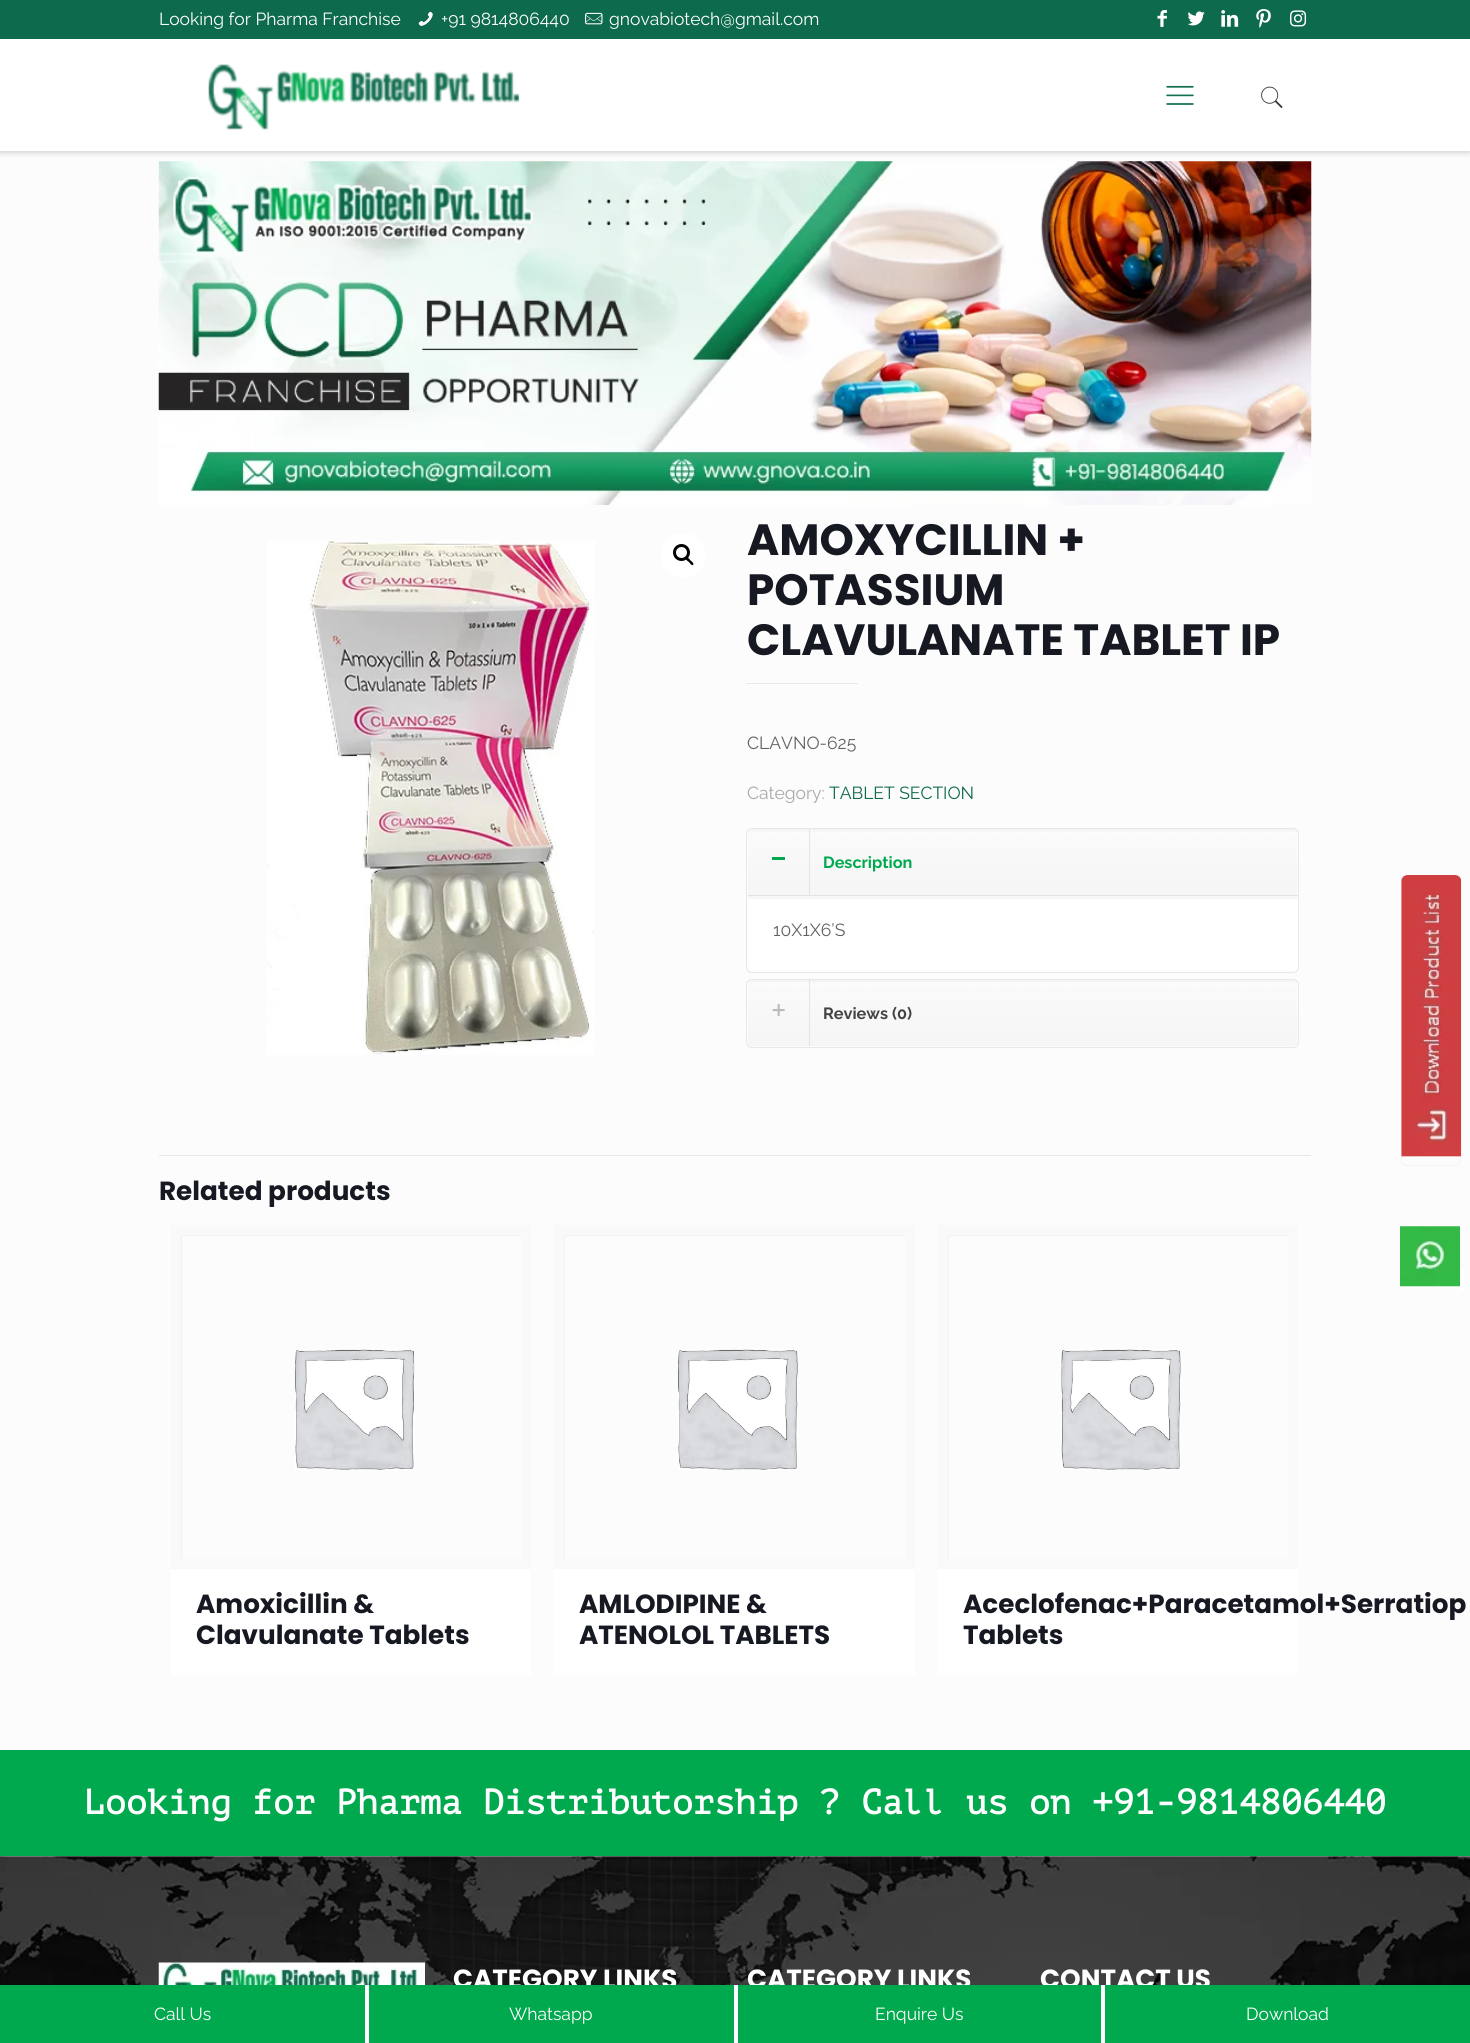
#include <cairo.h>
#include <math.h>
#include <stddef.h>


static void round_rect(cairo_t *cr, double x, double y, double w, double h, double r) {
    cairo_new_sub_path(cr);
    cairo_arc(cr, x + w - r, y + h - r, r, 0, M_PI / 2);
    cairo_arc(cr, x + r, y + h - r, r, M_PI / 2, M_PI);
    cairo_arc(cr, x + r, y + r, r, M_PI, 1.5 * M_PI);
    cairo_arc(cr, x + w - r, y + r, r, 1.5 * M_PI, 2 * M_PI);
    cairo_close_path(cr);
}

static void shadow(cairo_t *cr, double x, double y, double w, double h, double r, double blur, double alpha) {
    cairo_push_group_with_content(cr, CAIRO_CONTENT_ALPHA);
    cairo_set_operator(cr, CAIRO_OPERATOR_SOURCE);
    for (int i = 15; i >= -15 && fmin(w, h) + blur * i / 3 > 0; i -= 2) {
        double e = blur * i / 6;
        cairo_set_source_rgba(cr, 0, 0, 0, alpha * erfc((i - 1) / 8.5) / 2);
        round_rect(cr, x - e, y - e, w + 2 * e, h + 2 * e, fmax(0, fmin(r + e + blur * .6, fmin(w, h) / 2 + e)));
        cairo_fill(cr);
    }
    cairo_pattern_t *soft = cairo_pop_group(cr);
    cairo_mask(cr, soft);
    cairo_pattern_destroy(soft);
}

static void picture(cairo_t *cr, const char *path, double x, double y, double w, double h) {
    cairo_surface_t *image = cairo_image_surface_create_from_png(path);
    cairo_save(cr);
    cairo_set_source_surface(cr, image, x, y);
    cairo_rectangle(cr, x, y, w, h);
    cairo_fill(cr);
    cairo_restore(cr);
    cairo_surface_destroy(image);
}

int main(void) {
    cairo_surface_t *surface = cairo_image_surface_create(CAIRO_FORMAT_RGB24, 1470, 2043);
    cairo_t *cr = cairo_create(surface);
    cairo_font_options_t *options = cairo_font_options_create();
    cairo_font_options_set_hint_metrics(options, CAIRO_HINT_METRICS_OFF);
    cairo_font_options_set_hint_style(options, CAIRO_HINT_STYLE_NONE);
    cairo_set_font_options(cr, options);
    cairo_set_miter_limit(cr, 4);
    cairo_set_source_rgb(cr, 0.988, 0.988, 0.988);
    cairo_paint(cr);
    cairo_set_source_rgb(cr, 0.051, 0.416, 0.298);
    cairo_rectangle(cr, 0, 0, 1470, 39);
    cairo_fill(cr);
    cairo_select_font_face(cr, "Raleway", CAIRO_FONT_SLANT_NORMAL, CAIRO_FONT_WEIGHT_NORMAL);
    cairo_set_font_size(cr, 17.5);
    cairo_set_source_rgb(cr, 1, 1, 1);
    cairo_move_to(cr, 159, 25);
    cairo_show_text(cr, "Looking for Pharma Franchise");
    picture(cr, "img1.png", 418, 11, 15, 15);
    cairo_move_to(cr, 441, 25);
    cairo_show_text(cr, "+91 9814806440");
    picture(cr, "img2.png", 585, 12, 18, 13);
    cairo_move_to(cr, 609, 25);
    cairo_show_text(cr, "gnovabiotech@gmail.com");
    picture(cr, "img3.png", 1157, 10, 10, 17);
    picture(cr, "img4.png", 1187, 11, 18, 15);
    picture(cr, "img5.png", 1221, 10, 18, 17);
    picture(cr, "img6.png", 1256, 9, 15, 19);
    picture(cr, "img7.png", 1290, 10, 17, 17);
    cairo_rectangle(cr, 0, 39, 1470, 112);
    cairo_fill(cr);
    picture(cr, "img11.png", 431, 91, 7, 11);
    picture(cr, "img11.png", 626, 91, 7, 11);
    cairo_set_source_rgb(cr, 0.949, 0.949, 0.949);
    cairo_rectangle(cr, 0, 151, 1470, 2);
    cairo_fill(cr);
    picture(cr, "img12.png", 158, 161, 1154, 344);
    cairo_save(cr);
    cairo_rectangle(cr, 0, 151, 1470, 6);
    cairo_clip(cr);
    cairo_set_source_rgb(cr, 0, 0, 0);
    shadow(cr, 0, 41, 1470, 113, 0, 3, 0.1);
    cairo_restore(cr);
    picture(cr, "img8.png", 208, 64, 312, 66);
    picture(cr, "img9.png", 1166, 85, 28, 20);
    picture(cr, "img10.png", 1261, 86, 22, 23);
    picture(cr, "img13.png", 267, 541, 328, 514);
    cairo_set_source_rgb(cr, 1, 1, 1);
    cairo_arc(cr, 683.5, 555.5, 22.5, 0, 2 * M_PI);
    cairo_fill(cr);
    cairo_arc(cr, 681.5, 552.5, 7, 0, 2 * M_PI);
    cairo_set_source_rgb(cr, 0, 0, 0);
    cairo_set_line_width(cr, 3);
    cairo_stroke(cr);
    cairo_new_path(cr);
    cairo_move_to(cr, 686, 557.5);
    cairo_curve_to(cr, 687.5, 556.5, 690, 559.5, 690.5, 560.5);
    cairo_curve_to(cr, 691.5, 561, 694.5, 563.5, 693, 565);
    cairo_curve_to(cr, 692, 566, 689.5, 563, 689, 562);
    cairo_curve_to(cr, 688, 561.5, 684.5, 559, 686, 557.5);
    cairo_close_path(cr);
    cairo_fill(cr);
    cairo_select_font_face(cr, "Poppins", CAIRO_FONT_SLANT_NORMAL, CAIRO_FONT_WEIGHT_BOLD);
    cairo_set_font_size(cr, 43.75);
    cairo_set_source_rgb(cr, 0.086, 0.098, 0.133);
    cairo_move_to(cr, 747, 555);
    cairo_show_text(cr, "AMOXYCILLIN +");
    cairo_move_to(cr, 747, 605);
    cairo_show_text(cr, "POTASSIUM");
    cairo_move_to(cr, 747, 655);
    cairo_show_text(cr, "CLAVULANATE TABLET IP");
    cairo_set_source_rgb(cr, 0.91, 0.91, 0.91);
    cairo_rectangle(cr, 746, 683, 112, 1);
    cairo_fill(cr);
    cairo_select_font_face(cr, "Raleway", CAIRO_FONT_SLANT_NORMAL, CAIRO_FONT_WEIGHT_NORMAL);
    cairo_set_font_size(cr, 17.5);
    cairo_set_source_rgb(cr, 0.384, 0.384, 0.384);
    cairo_move_to(cr, 747, 749);
    cairo_show_text(cr, "CLAVNO-625");
    cairo_set_source_rgb(cr, 0.659, 0.659, 0.659);
    cairo_move_to(cr, 747, 799);
    cairo_show_text(cr, "Category:");
    cairo_set_source_rgb(cr, 0.051, 0.416, 0.298);
    cairo_move_to(cr, 829, 799);
    cairo_show_text(cr, "TABLET SECTION");
    round_rect(cr, 746.5, 828.5, 552, 144, 5.5);
    cairo_set_source_rgb(cr, 0.91, 0.91, 0.91);
    cairo_set_line_width(cr, 1);
    cairo_stroke(cr);
    picture(cr, "img14.png", 748, 829, 549, 67);
    cairo_set_source_rgba(cr, 0, 0, 0, 0.08);
    cairo_rectangle(cr, 748, 895, 550, 1);
    cairo_fill(cr);
    cairo_set_source_rgb(cr, 0, 0.663, 0.306);
    cairo_rectangle(cr, 772, 857, 13, 3);
    cairo_fill(cr);
    cairo_set_source_rgba(cr, 0, 0, 0, 0.08);
    cairo_rectangle(cr, 809, 829, 1, 66);
    cairo_fill(cr);
    cairo_select_font_face(cr, "Raleway", CAIRO_FONT_SLANT_NORMAL, CAIRO_FONT_WEIGHT_BOLD);
    cairo_set_font_size(cr, 16.25);
    cairo_set_source_rgb(cr, 0, 0.663, 0.306);
    cairo_move_to(cr, 823, 868);
    cairo_show_text(cr, "Description");
    cairo_set_source_rgb(cr, 1, 1, 1);
    cairo_new_path(cr);
    cairo_move_to(cr, 748, 896);
    cairo_line_to(cr, 1298, 896);
    cairo_line_to(cr, 1298, 966);
    cairo_curve_to(cr, 1298, 969, 1296, 971, 1293, 971);
    cairo_line_to(cr, 753, 971);
    cairo_curve_to(cr, 750, 971, 748, 969, 748, 966);
    cairo_close_path(cr);
    cairo_fill(cr);
    cairo_set_source_rgb(cr, 0.961, 0.961, 0.961);
    cairo_rectangle(cr, 748, 896, 549, 3);
    cairo_fill(cr);
    cairo_select_font_face(cr, "Raleway", CAIRO_FONT_SLANT_NORMAL, CAIRO_FONT_WEIGHT_NORMAL);
    cairo_set_font_size(cr, 17.5);
    cairo_set_source_rgb(cr, 0.384, 0.384, 0.384);
    cairo_move_to(cr, 773, 936);
    cairo_show_text(cr, "10X1X6’S");
    round_rect(cr, 746.5, 979.5, 552, 68, 5.5);
    cairo_set_source_rgb(cr, 0.91, 0.91, 0.91);
    cairo_stroke(cr);
    picture(cr, "img15.png", 748, 980, 549, 66);
    picture(cr, "img16.png", 772, 1004, 13, 13);
    cairo_set_source_rgba(cr, 0, 0, 0, 0.08);
    cairo_rectangle(cr, 809, 980, 1, 66);
    cairo_fill(cr);
    cairo_select_font_face(cr, "Raleway", CAIRO_FONT_SLANT_NORMAL, CAIRO_FONT_WEIGHT_BOLD);
    cairo_set_font_size(cr, 16.25);
    cairo_set_source_rgb(cr, 0.267, 0.267, 0.267);
    cairo_move_to(cr, 823, 1019);
    cairo_show_text(cr, "Reviews (0)");
    cairo_set_source_rgb(cr, 0.91, 0.91, 0.91);
    cairo_rectangle(cr, 159, 1155, 1152, 1);
    cairo_fill(cr);
    cairo_select_font_face(cr, "Poppins", CAIRO_FONT_SLANT_NORMAL, CAIRO_FONT_WEIGHT_BOLD);
    cairo_set_font_size(cr, 26.25);
    cairo_set_source_rgb(cr, 0.086, 0.098, 0.133);
    cairo_move_to(cr, 159, 1200);
    cairo_show_text(cr, "Related products");
    cairo_rectangle(cr, 176, 1230, 350, 334);
    cairo_set_source_rgb(cr, 0.973, 0.973, 0.973);
    cairo_set_line_width(cr, 10);
    cairo_stroke(cr);
    cairo_set_source_rgb(cr, 1, 1, 1);
    cairo_rectangle(cr, 171, 1569, 360, 106);
    cairo_fill(cr);
    cairo_save(cr);
    cairo_rectangle(cr, 181, 1235, 340, 324);
    cairo_clip(cr);
    cairo_rectangle(cr, 181.5, 1235.5, 342, 342);
    cairo_set_source_rgb(cr, 0.949, 0.949, 0.949);
    cairo_set_line_width(cr, 1);
    cairo_stroke(cr);
    cairo_restore(cr);
    picture(cr, "img17.png", 295, 1349, 120, 121);
    cairo_set_source_rgb(cr, 0.086, 0.098, 0.133);
    cairo_move_to(cr, 196, 1613);
    cairo_show_text(cr, "Amoxicillin &");
    cairo_move_to(cr, 196, 1644);
    cairo_show_text(cr, "Clavulanate Tablets");
    cairo_rectangle(cr, 559, 1230, 351, 334);
    cairo_set_source_rgb(cr, 0.973, 0.973, 0.973);
    cairo_stroke(cr);
    cairo_set_source_rgb(cr, 1, 1, 1);
    cairo_rectangle(cr, 554, 1569, 361, 106);
    cairo_fill(cr);
    cairo_save(cr);
    cairo_rectangle(cr, 564, 1235, 341, 324);
    cairo_clip(cr);
    cairo_rectangle(cr, 564.5, 1235.5, 343, 342);
    cairo_set_source_rgb(cr, 0.949, 0.949, 0.949);
    cairo_set_line_width(cr, 1);
    cairo_stroke(cr);
    cairo_restore(cr);
    picture(cr, "img18.png", 678, 1349, 120, 121);
    cairo_set_source_rgb(cr, 0.086, 0.098, 0.133);
    cairo_move_to(cr, 579, 1613);
    cairo_show_text(cr, "AMLODIPINE &");
    cairo_move_to(cr, 579, 1644);
    cairo_show_text(cr, "ATENOLOL TABLETS");
    cairo_rectangle(cr, 943, 1230, 350, 334);
    cairo_set_source_rgb(cr, 0.973, 0.973, 0.973);
    cairo_stroke(cr);
    cairo_set_source_rgb(cr, 1, 1, 1);
    cairo_rectangle(cr, 938, 1569, 360, 106);
    cairo_fill(cr);
    cairo_save(cr);
    cairo_rectangle(cr, 948, 1235, 340, 324);
    cairo_clip(cr);
    cairo_rectangle(cr, 948.5, 1235.5, 341, 342);
    cairo_set_source_rgb(cr, 0.949, 0.949, 0.949);
    cairo_set_line_width(cr, 1);
    cairo_stroke(cr);
    cairo_restore(cr);
    picture(cr, "img19.png", 1061, 1349, 120, 121);
    cairo_set_source_rgb(cr, 0.086, 0.098, 0.133);
    cairo_move_to(cr, 963, 1613);
    cairo_show_text(cr, "Aceclofenac+Paracetamol+Serratiop");
    cairo_move_to(cr, 963, 1644);
    cairo_show_text(cr, "Tablets");
    round_rect(cr, 1401.5, 875.5, 59, 290, 5.5);
    cairo_set_source_rgb(cr, 0.957, 0.957, 0.957);
    cairo_set_line_width(cr, 1);
    cairo_stroke(cr);
    picture(cr, "img20.png", 1401, 875, 61, 282);
    cairo_set_source_rgb(cr, 0, 0.663, 0.306);
    cairo_rectangle(cr, 0, 1750, 1470, 106);
    cairo_fill(cr);
    cairo_select_font_face(cr, "PT Mono", CAIRO_FONT_SLANT_NORMAL, CAIRO_FONT_WEIGHT_BOLD);
    cairo_set_font_size(cr, 35);
    cairo_set_source_rgb(cr, 1, 1, 1);
    cairo_move_to(cr, 84, 1814);
    cairo_show_text(cr, "Looking for Pharma Distributorship ? Call us on +91-9814806440");
    picture(cr, "img21.png", 0, 1856, 1470, 129);
    picture(cr, "img22.png", 1400, 1226, 60, 61);
    cairo_rectangle(cr, 1460, 1270, 4, 20);
    cairo_fill(cr);
    picture(cr, "img23.png", 158, 1962, 267, 23);
    cairo_select_font_face(cr, "Poppins", CAIRO_FONT_SLANT_NORMAL, CAIRO_FONT_WEIGHT_BOLD);
    cairo_set_font_size(cr, 26.25);
    cairo_move_to(cr, 453, 1988);
    cairo_show_text(cr, "CATEGORY LINKS");
    cairo_move_to(cr, 747, 1988);
    cairo_show_text(cr, "CATEGORY LINKS");
    cairo_move_to(cr, 1040, 1988);
    cairo_show_text(cr, "CONTACT US");
    cairo_set_source_rgb(cr, 0, 0.663, 0.306);
    cairo_rectangle(cr, 0, 1985, 1470, 58);
    cairo_fill(cr);
    cairo_set_source_rgb(cr, 1, 1, 1);
    cairo_rectangle(cr, 365, 1985, 4, 58);
    cairo_fill(cr);
    cairo_select_font_face(cr, "Raleway", CAIRO_FONT_SLANT_NORMAL, CAIRO_FONT_WEIGHT_NORMAL);
    cairo_set_font_size(cr, 17.5);
    cairo_move_to(cr, 154, 2020);
    cairo_show_text(cr, "Call Us");
    cairo_rectangle(cr, 734, 1985, 4, 58);
    cairo_fill(cr);
    cairo_move_to(cr, 509, 2020);
    cairo_show_text(cr, "Whatsapp");
    cairo_rectangle(cr, 1101, 1985, 4, 58);
    cairo_fill(cr);
    cairo_move_to(cr, 875, 2020);
    cairo_show_text(cr, "Enquire Us");
    cairo_move_to(cr, 1246, 2020);
    cairo_show_text(cr, "Download");
    cairo_surface_write_to_png(surface, "page.png");
    cairo_font_options_destroy(options);
    cairo_destroy(cr);
    cairo_surface_destroy(surface);
    return 0;
}
